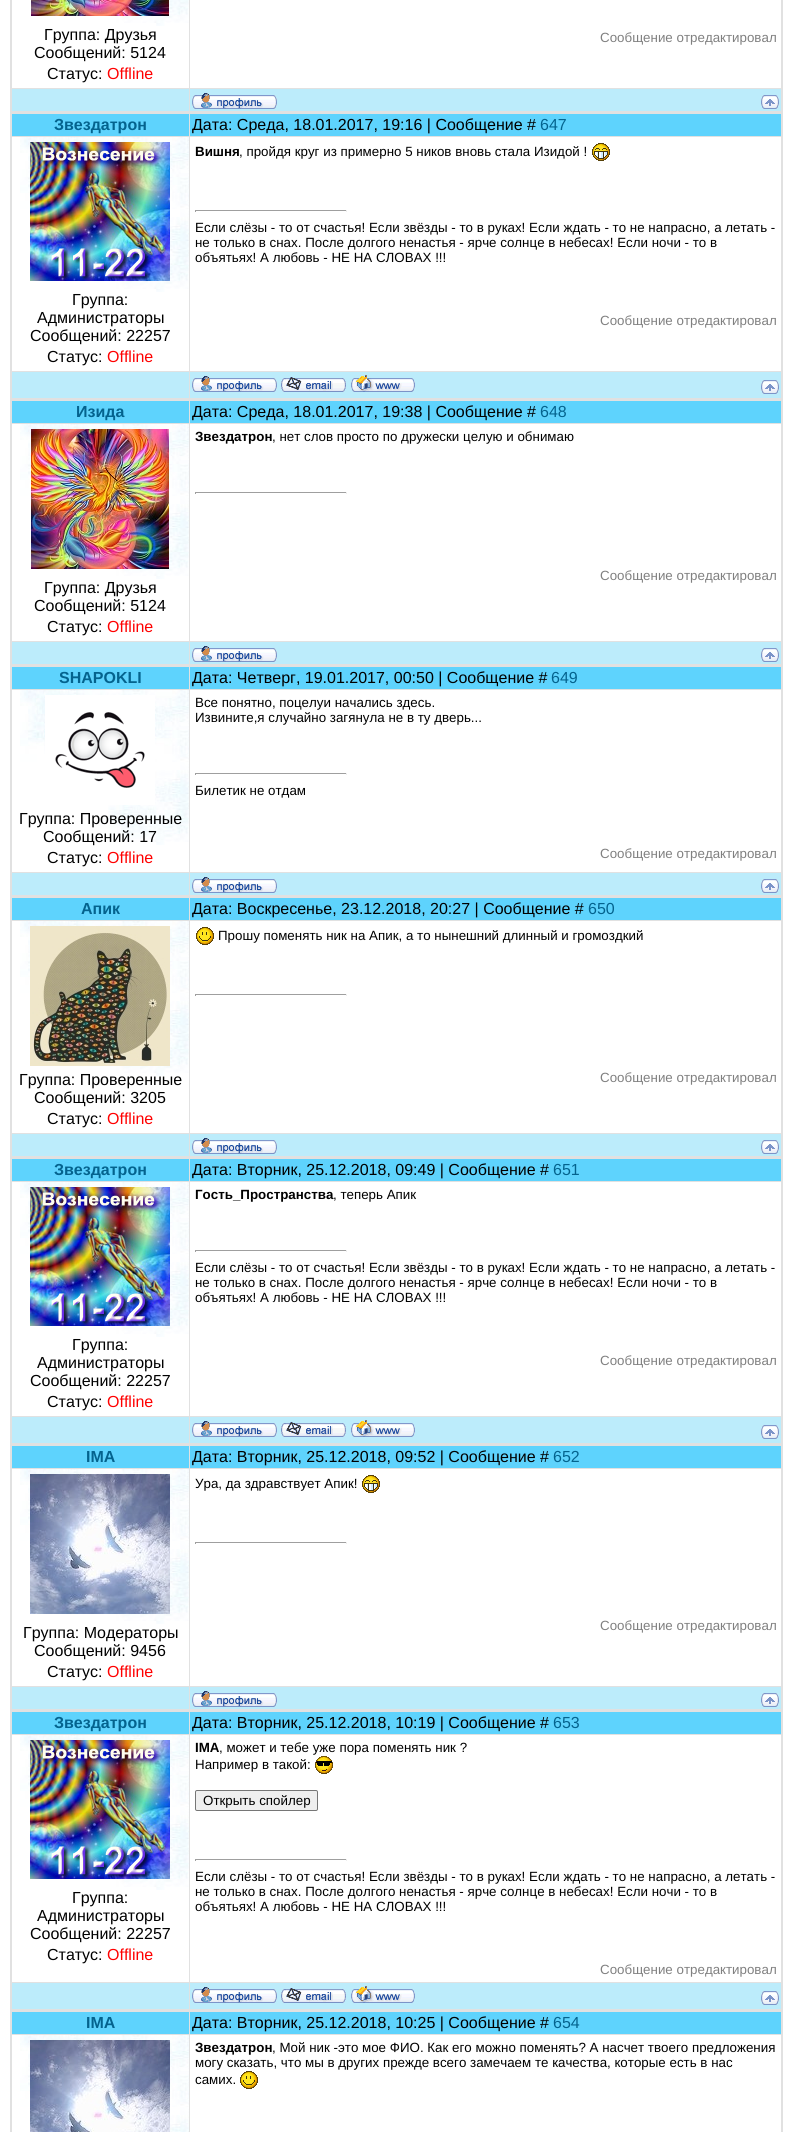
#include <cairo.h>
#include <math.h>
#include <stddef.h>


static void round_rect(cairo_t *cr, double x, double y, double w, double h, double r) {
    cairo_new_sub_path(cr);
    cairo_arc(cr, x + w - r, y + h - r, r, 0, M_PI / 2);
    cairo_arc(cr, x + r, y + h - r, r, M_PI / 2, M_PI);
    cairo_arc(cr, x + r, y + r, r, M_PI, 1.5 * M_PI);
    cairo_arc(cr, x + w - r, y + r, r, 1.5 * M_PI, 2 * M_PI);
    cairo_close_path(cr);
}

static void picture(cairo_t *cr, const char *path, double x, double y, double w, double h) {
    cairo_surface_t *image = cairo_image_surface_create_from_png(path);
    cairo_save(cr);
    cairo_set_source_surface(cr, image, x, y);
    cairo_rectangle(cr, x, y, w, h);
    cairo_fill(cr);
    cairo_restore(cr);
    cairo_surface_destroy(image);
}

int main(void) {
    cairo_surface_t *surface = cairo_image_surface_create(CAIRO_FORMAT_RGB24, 793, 2132);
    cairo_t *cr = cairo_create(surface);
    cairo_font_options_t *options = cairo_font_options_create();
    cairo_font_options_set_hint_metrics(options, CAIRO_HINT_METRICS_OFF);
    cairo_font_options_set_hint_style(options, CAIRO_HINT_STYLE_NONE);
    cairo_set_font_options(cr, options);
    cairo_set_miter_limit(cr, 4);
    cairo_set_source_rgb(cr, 1, 1, 1);
    cairo_paint(cr);
    cairo_set_source_rgb(cr, 0.882, 0.882, 0.882);
    cairo_rectangle(cr, 10, 0, 773, 2132);
    cairo_fill(cr);
    cairo_set_source_rgb(cr, 1, 1, 1);
    cairo_rectangle(cr, 12, 0, 177, 88);
    cairo_fill(cr);
    picture(cr, "img1.png", 109, 0, 80, 26);
    picture(cr, "img2.png", 31, 0, 138, 16);
    cairo_select_font_face(cr, "Liberation Sans", CAIRO_FONT_SLANT_NORMAL, CAIRO_FONT_WEIGHT_NORMAL);
    cairo_set_font_size(cr, 16);
    cairo_set_source_rgb(cr, 0, 0, 0);
    cairo_move_to(cr, 44, 40);
    cairo_show_text(cr, "Группа: Друзья");
    cairo_move_to(cr, 34, 58);
    cairo_show_text(cr, "Сообщений: 5124");
    cairo_move_to(cr, 47, 79);
    cairo_show_text(cr, "Статус:");
    cairo_set_source_rgb(cr, 1, 0, 0);
    cairo_move_to(cr, 107, 79);
    cairo_show_text(cr, "Offline");
    cairo_set_source_rgb(cr, 1, 1, 1);
    cairo_rectangle(cr, 190, 0, 591, 88);
    cairo_fill(cr);
    cairo_set_font_size(cr, 13.35);
    cairo_set_source_rgb(cr, 0.502, 0.502, 0.502);
    cairo_move_to(cr, 600, 42);
    cairo_show_text(cr, "Сообщение отредактировал");
    cairo_set_source_rgb(cr, 0.737, 0.922, 0.984);
    cairo_rectangle(cr, 12, 89, 177, 22);
    cairo_fill(cr);
    cairo_rectangle(cr, 190, 89, 591, 22);
    cairo_fill(cr);
    picture(cr, "img3.png", 192, 93, 85, 16);
    picture(cr, "img4.png", 761, 95, 18, 14);
    cairo_set_source_rgb(cr, 0.369, 0.827, 0.992);
    cairo_rectangle(cr, 12, 114, 177, 22);
    cairo_fill(cr);
    cairo_select_font_face(cr, "Liberation Sans", CAIRO_FONT_SLANT_NORMAL, CAIRO_FONT_WEIGHT_BOLD);
    cairo_set_font_size(cr, 16);
    cairo_set_source_rgb(cr, 0.016, 0.388, 0.557);
    cairo_move_to(cr, 54, 130);
    cairo_show_text(cr, "Звездатрон");
    cairo_set_source_rgb(cr, 0.369, 0.827, 0.992);
    cairo_rectangle(cr, 190, 114, 591, 22);
    cairo_fill(cr);
    cairo_select_font_face(cr, "Liberation Sans", CAIRO_FONT_SLANT_NORMAL, CAIRO_FONT_WEIGHT_NORMAL);
    cairo_set_source_rgb(cr, 0, 0, 0);
    cairo_move_to(cr, 192, 130);
    cairo_show_text(cr, "Дата: Среда, 18.01.2017, 19:16 | Сообщение #");
    cairo_set_source_rgb(cr, 0.016, 0.388, 0.557);
    cairo_move_to(cr, 540, 130);
    cairo_show_text(cr, "647");
    cairo_set_source_rgb(cr, 1, 1, 1);
    cairo_rectangle(cr, 12, 137, 177, 234);
    cairo_fill(cr);
    picture(cr, "img5.png", 20, 137, 169, 155);
    picture(cr, "img6.png", 30, 142, 140, 139);
    cairo_set_source_rgb(cr, 0, 0, 0);
    cairo_move_to(cr, 72, 305);
    cairo_show_text(cr, "Группа:");
    cairo_move_to(cr, 37, 323);
    cairo_show_text(cr, "Администраторы");
    cairo_move_to(cr, 30, 341);
    cairo_show_text(cr, "Сообщений: 22257");
    cairo_move_to(cr, 47, 362);
    cairo_show_text(cr, "Статус:");
    cairo_set_source_rgb(cr, 1, 0, 0);
    cairo_move_to(cr, 107, 362);
    cairo_show_text(cr, "Offline");
    cairo_set_source_rgb(cr, 1, 1, 1);
    cairo_rectangle(cr, 190, 137, 591, 234);
    cairo_fill(cr);
    cairo_select_font_face(cr, "Liberation Sans", CAIRO_FONT_SLANT_NORMAL, CAIRO_FONT_WEIGHT_BOLD);
    cairo_set_font_size(cr, 13.35);
    cairo_set_source_rgb(cr, 0, 0, 0);
    cairo_move_to(cr, 195, 156);
    cairo_show_text(cr, "Вишня");
    cairo_select_font_face(cr, "Liberation Sans", CAIRO_FONT_SLANT_NORMAL, CAIRO_FONT_WEIGHT_NORMAL);
    cairo_move_to(cr, 239, 156);
    cairo_show_text(cr, ", пройдя круг из примерно 5 ников вновь стала Изидой !");
    picture(cr, "img7.png", 592, 143, 18, 18);
    cairo_set_source_rgb(cr, 0.624, 0.624, 0.624);
    cairo_rectangle(cr, 195, 210, 152, 1);
    cairo_fill(cr);
    cairo_set_source_rgb(cr, 0.933, 0.933, 0.933);
    cairo_rectangle(cr, 346, 210, 1, 2);
    cairo_fill(cr);
    cairo_set_source_rgb(cr, 0.624, 0.624, 0.624);
    cairo_rectangle(cr, 195, 210, 1, 2);
    cairo_fill(cr);
    cairo_set_source_rgb(cr, 0, 0, 0);
    cairo_move_to(cr, 195, 232);
    cairo_show_text(cr, "Если слёзы - то от счастья! Если звёзды - то в руках! Если ждать - то не напрасно, а летать -");
    cairo_move_to(cr, 195, 247);
    cairo_show_text(cr, "не только в снах. После долгого ненастья - ярче солнце в небесах! Если ночи - то в");
    cairo_move_to(cr, 195, 262);
    cairo_show_text(cr, "объятьях! А любовь - НЕ НА СЛОВАХ !!!");
    cairo_set_source_rgb(cr, 0.502, 0.502, 0.502);
    cairo_move_to(cr, 600, 325);
    cairo_show_text(cr, "Сообщение отредактировал");
    cairo_set_source_rgb(cr, 0.737, 0.922, 0.984);
    cairo_rectangle(cr, 12, 372, 177, 26);
    cairo_fill(cr);
    cairo_rectangle(cr, 190, 372, 591, 26);
    cairo_fill(cr);
    picture(cr, "img3.png", 192, 376, 85, 16);
    picture(cr, "img8.png", 281, 377, 65, 15);
    picture(cr, "img9.png", 351, 375, 64, 17);
    picture(cr, "img4.png", 761, 380, 18, 14);
    cairo_set_source_rgb(cr, 0.369, 0.827, 0.992);
    cairo_rectangle(cr, 12, 401, 177, 22);
    cairo_fill(cr);
    cairo_select_font_face(cr, "Liberation Sans", CAIRO_FONT_SLANT_NORMAL, CAIRO_FONT_WEIGHT_BOLD);
    cairo_set_font_size(cr, 16);
    cairo_set_source_rgb(cr, 0.016, 0.388, 0.557);
    cairo_move_to(cr, 76, 417);
    cairo_show_text(cr, "Изида");
    cairo_set_source_rgb(cr, 0.369, 0.827, 0.992);
    cairo_rectangle(cr, 190, 401, 591, 22);
    cairo_fill(cr);
    cairo_select_font_face(cr, "Liberation Sans", CAIRO_FONT_SLANT_NORMAL, CAIRO_FONT_WEIGHT_NORMAL);
    cairo_set_source_rgb(cr, 0, 0, 0);
    cairo_move_to(cr, 192, 417);
    cairo_show_text(cr, "Дата: Среда, 18.01.2017, 19:38 | Сообщение #");
    cairo_set_source_rgb(cr, 0.016, 0.388, 0.557);
    cairo_move_to(cr, 540, 417);
    cairo_show_text(cr, "648");
    cairo_set_source_rgb(cr, 1, 1, 1);
    cairo_rectangle(cr, 190, 424, 591, 217);
    cairo_fill(cr);
    cairo_select_font_face(cr, "Liberation Sans", CAIRO_FONT_SLANT_NORMAL, CAIRO_FONT_WEIGHT_BOLD);
    cairo_set_font_size(cr, 13.35);
    cairo_set_source_rgb(cr, 0, 0, 0);
    cairo_move_to(cr, 195, 441);
    cairo_show_text(cr, "Звездатрон");
    cairo_select_font_face(cr, "Liberation Sans", CAIRO_FONT_SLANT_NORMAL, CAIRO_FONT_WEIGHT_NORMAL);
    cairo_move_to(cr, 272, 441);
    cairo_show_text(cr, ", нет слов просто по дружески целую и обнимаю");
    cairo_set_source_rgb(cr, 0.624, 0.624, 0.624);
    cairo_rectangle(cr, 195, 492, 152, 1);
    cairo_fill(cr);
    cairo_set_source_rgb(cr, 0.933, 0.933, 0.933);
    cairo_rectangle(cr, 346, 492, 1, 2);
    cairo_fill(cr);
    cairo_set_source_rgb(cr, 0.624, 0.624, 0.624);
    cairo_rectangle(cr, 195, 492, 1, 2);
    cairo_fill(cr);
    cairo_set_source_rgb(cr, 0.502, 0.502, 0.502);
    cairo_move_to(cr, 600, 580);
    cairo_show_text(cr, "Сообщение отредактировал");
    cairo_set_source_rgb(cr, 1, 1, 1);
    cairo_rectangle(cr, 12, 424, 177, 217);
    cairo_fill(cr);
    picture(cr, "img5.png", 20, 424, 169, 155);
    picture(cr, "img10.png", 31, 429, 138, 140);
    cairo_set_font_size(cr, 16);
    cairo_set_source_rgb(cr, 0, 0, 0);
    cairo_move_to(cr, 44, 593);
    cairo_show_text(cr, "Группа: Друзья");
    cairo_move_to(cr, 34, 611);
    cairo_show_text(cr, "Сообщений: 5124");
    cairo_move_to(cr, 47, 632);
    cairo_show_text(cr, "Статус:");
    cairo_set_source_rgb(cr, 1, 0, 0);
    cairo_move_to(cr, 107, 632);
    cairo_show_text(cr, "Offline");
    cairo_set_source_rgb(cr, 0.737, 0.922, 0.984);
    cairo_rectangle(cr, 12, 642, 177, 22);
    cairo_fill(cr);
    cairo_rectangle(cr, 190, 642, 591, 22);
    cairo_fill(cr);
    picture(cr, "img3.png", 192, 646, 85, 16);
    picture(cr, "img4.png", 761, 648, 18, 14);
    cairo_set_source_rgb(cr, 0.369, 0.827, 0.992);
    cairo_rectangle(cr, 12, 667, 177, 22);
    cairo_fill(cr);
    cairo_select_font_face(cr, "Liberation Sans", CAIRO_FONT_SLANT_NORMAL, CAIRO_FONT_WEIGHT_BOLD);
    cairo_set_source_rgb(cr, 0.016, 0.388, 0.557);
    cairo_move_to(cr, 59, 683);
    cairo_show_text(cr, "SHAPOKLI");
    cairo_set_source_rgb(cr, 0.369, 0.827, 0.992);
    cairo_rectangle(cr, 190, 667, 591, 22);
    cairo_fill(cr);
    cairo_select_font_face(cr, "Liberation Sans", CAIRO_FONT_SLANT_NORMAL, CAIRO_FONT_WEIGHT_NORMAL);
    cairo_set_source_rgb(cr, 0, 0, 0);
    cairo_move_to(cr, 192, 683);
    cairo_show_text(cr, "Дата: Четверг, 19.01.2017, 00:50 | Сообщение #");
    cairo_set_source_rgb(cr, 0.016, 0.388, 0.557);
    cairo_move_to(cr, 551, 683);
    cairo_show_text(cr, "649");
    cairo_set_source_rgb(cr, 1, 1, 1);
    cairo_rectangle(cr, 12, 690, 177, 182);
    cairo_fill(cr);
    picture(cr, "img5.png", 20, 690, 169, 155);
    picture(cr, "img11.png", 45, 695, 110, 110);
    cairo_set_source_rgb(cr, 0, 0, 0);
    cairo_move_to(cr, 19, 824);
    cairo_show_text(cr, "Группа: Проверенные");
    cairo_move_to(cr, 43, 842);
    cairo_show_text(cr, "Сообщений: 17");
    cairo_move_to(cr, 47, 863);
    cairo_show_text(cr, "Статус:");
    cairo_set_source_rgb(cr, 1, 0, 0);
    cairo_move_to(cr, 107, 863);
    cairo_show_text(cr, "Offline");
    cairo_set_source_rgb(cr, 1, 1, 1);
    cairo_rectangle(cr, 190, 690, 591, 182);
    cairo_fill(cr);
    cairo_set_font_size(cr, 13.35);
    cairo_set_source_rgb(cr, 0, 0, 0);
    cairo_move_to(cr, 195, 707);
    cairo_show_text(cr, "Все понятно, поцелуи начались здесь.");
    cairo_move_to(cr, 195, 722);
    cairo_show_text(cr, "Извините,я случайно загянула не в ту дверь...");
    cairo_set_source_rgb(cr, 0.624, 0.624, 0.624);
    cairo_rectangle(cr, 195, 773, 152, 1);
    cairo_fill(cr);
    cairo_set_source_rgb(cr, 0.933, 0.933, 0.933);
    cairo_rectangle(cr, 346, 773, 1, 2);
    cairo_fill(cr);
    cairo_set_source_rgb(cr, 0.624, 0.624, 0.624);
    cairo_rectangle(cr, 195, 773, 1, 2);
    cairo_fill(cr);
    cairo_set_source_rgb(cr, 0, 0, 0);
    cairo_move_to(cr, 195, 795);
    cairo_show_text(cr, "Билетик не отдам");
    cairo_set_source_rgb(cr, 0.502, 0.502, 0.502);
    cairo_move_to(cr, 600, 858);
    cairo_show_text(cr, "Сообщение отредактировал");
    cairo_set_source_rgb(cr, 0.737, 0.922, 0.984);
    cairo_rectangle(cr, 12, 873, 177, 22);
    cairo_fill(cr);
    cairo_rectangle(cr, 190, 873, 591, 22);
    cairo_fill(cr);
    picture(cr, "img3.png", 192, 877, 85, 16);
    picture(cr, "img4.png", 761, 879, 18, 14);
    cairo_set_source_rgb(cr, 0.369, 0.827, 0.992);
    cairo_rectangle(cr, 12, 898, 177, 22);
    cairo_fill(cr);
    cairo_select_font_face(cr, "Liberation Sans", CAIRO_FONT_SLANT_NORMAL, CAIRO_FONT_WEIGHT_BOLD);
    cairo_set_font_size(cr, 16);
    cairo_set_source_rgb(cr, 0.016, 0.388, 0.557);
    cairo_move_to(cr, 81, 914);
    cairo_show_text(cr, "Апик");
    cairo_set_source_rgb(cr, 0.369, 0.827, 0.992);
    cairo_rectangle(cr, 190, 898, 591, 22);
    cairo_fill(cr);
    cairo_select_font_face(cr, "Liberation Sans", CAIRO_FONT_SLANT_NORMAL, CAIRO_FONT_WEIGHT_NORMAL);
    cairo_set_source_rgb(cr, 0, 0, 0);
    cairo_move_to(cr, 192, 914);
    cairo_show_text(cr, "Дата: Воскресенье, 23.12.2018, 20:27 | Сообщение #");
    cairo_set_source_rgb(cr, 0.016, 0.388, 0.557);
    cairo_move_to(cr, 588, 914);
    cairo_show_text(cr, "650");
    cairo_set_source_rgb(cr, 1, 1, 1);
    cairo_rectangle(cr, 190, 921, 591, 212);
    cairo_fill(cr);
    picture(cr, "img12.png", 196, 927, 18, 18);
    cairo_set_font_size(cr, 13.35);
    cairo_set_source_rgb(cr, 0, 0, 0);
    cairo_move_to(cr, 218, 940);
    cairo_show_text(cr, "Прошу поменять ник на Апик, а то нынешний длинный и громоздкий");
    cairo_set_source_rgb(cr, 0.624, 0.624, 0.624);
    cairo_rectangle(cr, 195, 994, 152, 1);
    cairo_fill(cr);
    cairo_set_source_rgb(cr, 0.933, 0.933, 0.933);
    cairo_rectangle(cr, 346, 994, 1, 2);
    cairo_fill(cr);
    cairo_set_source_rgb(cr, 0.624, 0.624, 0.624);
    cairo_rectangle(cr, 195, 994, 1, 2);
    cairo_fill(cr);
    cairo_set_source_rgb(cr, 0.502, 0.502, 0.502);
    cairo_move_to(cr, 600, 1082);
    cairo_show_text(cr, "Сообщение отредактировал");
    cairo_set_source_rgb(cr, 1, 1, 1);
    cairo_rectangle(cr, 12, 921, 177, 212);
    cairo_fill(cr);
    picture(cr, "img5.png", 20, 921, 169, 155);
    picture(cr, "img13.png", 30, 926, 140, 140);
    cairo_set_font_size(cr, 16);
    cairo_set_source_rgb(cr, 0, 0, 0);
    cairo_move_to(cr, 19, 1085);
    cairo_show_text(cr, "Группа: Проверенные");
    cairo_move_to(cr, 34, 1103);
    cairo_show_text(cr, "Сообщений: 3205");
    cairo_move_to(cr, 47, 1124);
    cairo_show_text(cr, "Статус:");
    cairo_set_source_rgb(cr, 1, 0, 0);
    cairo_move_to(cr, 107, 1124);
    cairo_show_text(cr, "Offline");
    cairo_set_source_rgb(cr, 0.737, 0.922, 0.984);
    cairo_rectangle(cr, 12, 1134, 177, 22);
    cairo_fill(cr);
    cairo_rectangle(cr, 190, 1134, 591, 22);
    cairo_fill(cr);
    picture(cr, "img3.png", 192, 1138, 85, 16);
    picture(cr, "img4.png", 761, 1140, 18, 14);
    cairo_set_source_rgb(cr, 0.369, 0.827, 0.992);
    cairo_rectangle(cr, 12, 1159, 177, 22);
    cairo_fill(cr);
    cairo_select_font_face(cr, "Liberation Sans", CAIRO_FONT_SLANT_NORMAL, CAIRO_FONT_WEIGHT_BOLD);
    cairo_set_source_rgb(cr, 0.016, 0.388, 0.557);
    cairo_move_to(cr, 54, 1175);
    cairo_show_text(cr, "Звездатрон");
    cairo_set_source_rgb(cr, 0.369, 0.827, 0.992);
    cairo_rectangle(cr, 190, 1159, 591, 22);
    cairo_fill(cr);
    cairo_select_font_face(cr, "Liberation Sans", CAIRO_FONT_SLANT_NORMAL, CAIRO_FONT_WEIGHT_NORMAL);
    cairo_set_source_rgb(cr, 0, 0, 0);
    cairo_move_to(cr, 192, 1175);
    cairo_show_text(cr, "Дата: Вторник, 25.12.2018, 09:49 | Сообщение #");
    cairo_set_source_rgb(cr, 0.016, 0.388, 0.557);
    cairo_move_to(cr, 553, 1175);
    cairo_show_text(cr, "651");
    cairo_set_source_rgb(cr, 1, 1, 1);
    cairo_rectangle(cr, 12, 1182, 177, 234);
    cairo_fill(cr);
    picture(cr, "img5.png", 20, 1182, 169, 155);
    picture(cr, "img6.png", 30, 1187, 140, 139);
    cairo_set_source_rgb(cr, 0, 0, 0);
    cairo_move_to(cr, 72, 1350);
    cairo_show_text(cr, "Группа:");
    cairo_move_to(cr, 37, 1368);
    cairo_show_text(cr, "Администраторы");
    cairo_move_to(cr, 30, 1386);
    cairo_show_text(cr, "Сообщений: 22257");
    cairo_move_to(cr, 47, 1407);
    cairo_show_text(cr, "Статус:");
    cairo_set_source_rgb(cr, 1, 0, 0);
    cairo_move_to(cr, 107, 1407);
    cairo_show_text(cr, "Offline");
    cairo_set_source_rgb(cr, 1, 1, 1);
    cairo_rectangle(cr, 190, 1182, 591, 234);
    cairo_fill(cr);
    cairo_select_font_face(cr, "Liberation Sans", CAIRO_FONT_SLANT_NORMAL, CAIRO_FONT_WEIGHT_BOLD);
    cairo_set_font_size(cr, 13.35);
    cairo_set_source_rgb(cr, 0, 0, 0);
    cairo_move_to(cr, 195, 1199);
    cairo_show_text(cr, "Гость_Пространства");
    cairo_select_font_face(cr, "Liberation Sans", CAIRO_FONT_SLANT_NORMAL, CAIRO_FONT_WEIGHT_NORMAL);
    cairo_move_to(cr, 333, 1199);
    cairo_show_text(cr, ", теперь Апик");
    cairo_set_source_rgb(cr, 0.624, 0.624, 0.624);
    cairo_rectangle(cr, 195, 1250, 152, 1);
    cairo_fill(cr);
    cairo_set_source_rgb(cr, 0.933, 0.933, 0.933);
    cairo_rectangle(cr, 346, 1250, 1, 2);
    cairo_fill(cr);
    cairo_set_source_rgb(cr, 0.624, 0.624, 0.624);
    cairo_rectangle(cr, 195, 1250, 1, 2);
    cairo_fill(cr);
    cairo_set_source_rgb(cr, 0, 0, 0);
    cairo_move_to(cr, 195, 1272);
    cairo_show_text(cr, "Если слёзы - то от счастья! Если звёзды - то в руках! Если ждать - то не напрасно, а летать -");
    cairo_move_to(cr, 195, 1287);
    cairo_show_text(cr, "не только в снах. После долгого ненастья - ярче солнце в небесах! Если ночи - то в");
    cairo_move_to(cr, 195, 1302);
    cairo_show_text(cr, "объятьях! А любовь - НЕ НА СЛОВАХ !!!");
    cairo_set_source_rgb(cr, 0.502, 0.502, 0.502);
    cairo_move_to(cr, 600, 1365);
    cairo_show_text(cr, "Сообщение отредактировал");
    cairo_set_source_rgb(cr, 0.737, 0.922, 0.984);
    cairo_rectangle(cr, 12, 1417, 177, 26);
    cairo_fill(cr);
    cairo_rectangle(cr, 190, 1417, 591, 26);
    cairo_fill(cr);
    picture(cr, "img3.png", 192, 1421, 85, 16);
    picture(cr, "img8.png", 281, 1422, 65, 15);
    picture(cr, "img9.png", 351, 1420, 64, 17);
    picture(cr, "img4.png", 761, 1425, 18, 14);
    cairo_set_source_rgb(cr, 0.369, 0.827, 0.992);
    cairo_rectangle(cr, 12, 1446, 177, 22);
    cairo_fill(cr);
    cairo_select_font_face(cr, "Liberation Sans", CAIRO_FONT_SLANT_NORMAL, CAIRO_FONT_WEIGHT_BOLD);
    cairo_set_font_size(cr, 16);
    cairo_set_source_rgb(cr, 0.016, 0.388, 0.557);
    cairo_move_to(cr, 86, 1462);
    cairo_show_text(cr, "IMA");
    cairo_set_source_rgb(cr, 0.369, 0.827, 0.992);
    cairo_rectangle(cr, 190, 1446, 591, 22);
    cairo_fill(cr);
    cairo_select_font_face(cr, "Liberation Sans", CAIRO_FONT_SLANT_NORMAL, CAIRO_FONT_WEIGHT_NORMAL);
    cairo_set_source_rgb(cr, 0, 0, 0);
    cairo_move_to(cr, 192, 1462);
    cairo_show_text(cr, "Дата: Вторник, 25.12.2018, 09:52 | Сообщение #");
    cairo_set_source_rgb(cr, 0.016, 0.388, 0.557);
    cairo_move_to(cr, 553, 1462);
    cairo_show_text(cr, "652");
    cairo_set_source_rgb(cr, 1, 1, 1);
    cairo_rectangle(cr, 190, 1469, 591, 217);
    cairo_fill(cr);
    cairo_set_font_size(cr, 13.35);
    cairo_set_source_rgb(cr, 0, 0, 0);
    cairo_move_to(cr, 195, 1488);
    cairo_show_text(cr, "Ура, да здравствует Апик!");
    picture(cr, "img7.png", 362, 1475, 18, 18);
    cairo_set_source_rgb(cr, 0.624, 0.624, 0.624);
    cairo_rectangle(cr, 195, 1542, 152, 1);
    cairo_fill(cr);
    cairo_set_source_rgb(cr, 0.933, 0.933, 0.933);
    cairo_rectangle(cr, 346, 1542, 1, 2);
    cairo_fill(cr);
    cairo_set_source_rgb(cr, 0.624, 0.624, 0.624);
    cairo_rectangle(cr, 195, 1542, 1, 2);
    cairo_fill(cr);
    cairo_set_source_rgb(cr, 0.502, 0.502, 0.502);
    cairo_move_to(cr, 600, 1630);
    cairo_show_text(cr, "Сообщение отредактировал");
    cairo_set_source_rgb(cr, 1, 1, 1);
    cairo_rectangle(cr, 12, 1469, 177, 217);
    cairo_fill(cr);
    picture(cr, "img5.png", 20, 1469, 169, 155);
    picture(cr, "img14.png", 30, 1474, 140, 140);
    cairo_set_font_size(cr, 16);
    cairo_set_source_rgb(cr, 0, 0, 0);
    cairo_move_to(cr, 23, 1638);
    cairo_show_text(cr, "Группа: Модераторы");
    cairo_move_to(cr, 34, 1656);
    cairo_show_text(cr, "Сообщений: 9456");
    cairo_move_to(cr, 47, 1677);
    cairo_show_text(cr, "Статус:");
    cairo_set_source_rgb(cr, 1, 0, 0);
    cairo_move_to(cr, 107, 1677);
    cairo_show_text(cr, "Offline");
    cairo_set_source_rgb(cr, 0.737, 0.922, 0.984);
    cairo_rectangle(cr, 12, 1687, 177, 22);
    cairo_fill(cr);
    cairo_rectangle(cr, 190, 1687, 591, 22);
    cairo_fill(cr);
    picture(cr, "img3.png", 192, 1691, 85, 16);
    picture(cr, "img4.png", 761, 1693, 18, 14);
    cairo_set_source_rgb(cr, 0.369, 0.827, 0.992);
    cairo_rectangle(cr, 12, 1712, 177, 22);
    cairo_fill(cr);
    cairo_select_font_face(cr, "Liberation Sans", CAIRO_FONT_SLANT_NORMAL, CAIRO_FONT_WEIGHT_BOLD);
    cairo_set_source_rgb(cr, 0.016, 0.388, 0.557);
    cairo_move_to(cr, 54, 1728);
    cairo_show_text(cr, "Звездатрон");
    cairo_set_source_rgb(cr, 0.369, 0.827, 0.992);
    cairo_rectangle(cr, 190, 1712, 591, 22);
    cairo_fill(cr);
    cairo_select_font_face(cr, "Liberation Sans", CAIRO_FONT_SLANT_NORMAL, CAIRO_FONT_WEIGHT_NORMAL);
    cairo_set_source_rgb(cr, 0, 0, 0);
    cairo_move_to(cr, 192, 1728);
    cairo_show_text(cr, "Дата: Вторник, 25.12.2018, 10:19 | Сообщение #");
    cairo_set_source_rgb(cr, 0.016, 0.388, 0.557);
    cairo_move_to(cr, 553, 1728);
    cairo_show_text(cr, "653");
    cairo_set_source_rgb(cr, 1, 1, 1);
    cairo_rectangle(cr, 12, 1735, 177, 247);
    cairo_fill(cr);
    picture(cr, "img5.png", 20, 1735, 169, 155);
    picture(cr, "img6.png", 30, 1740, 140, 139);
    cairo_set_source_rgb(cr, 0, 0, 0);
    cairo_move_to(cr, 72, 1903);
    cairo_show_text(cr, "Группа:");
    cairo_move_to(cr, 37, 1921);
    cairo_show_text(cr, "Администраторы");
    cairo_move_to(cr, 30, 1939);
    cairo_show_text(cr, "Сообщений: 22257");
    cairo_move_to(cr, 47, 1960);
    cairo_show_text(cr, "Статус:");
    cairo_set_source_rgb(cr, 1, 0, 0);
    cairo_move_to(cr, 107, 1960);
    cairo_show_text(cr, "Offline");
    cairo_set_source_rgb(cr, 1, 1, 1);
    cairo_rectangle(cr, 190, 1735, 591, 247);
    cairo_fill(cr);
    cairo_select_font_face(cr, "Liberation Sans", CAIRO_FONT_SLANT_NORMAL, CAIRO_FONT_WEIGHT_BOLD);
    cairo_set_font_size(cr, 13.35);
    cairo_set_source_rgb(cr, 0, 0, 0);
    cairo_move_to(cr, 195, 1752);
    cairo_show_text(cr, "IMA");
    cairo_select_font_face(cr, "Liberation Sans", CAIRO_FONT_SLANT_NORMAL, CAIRO_FONT_WEIGHT_NORMAL);
    cairo_move_to(cr, 219, 1752);
    cairo_show_text(cr, ", может и тебе уже пора поменять ник ?");
    cairo_move_to(cr, 195, 1769);
    cairo_show_text(cr, "Например в такой:");
    picture(cr, "img15.png", 315, 1756, 18, 18);
    cairo_set_source_rgb(cr, 0.937, 0.937, 0.937);
    round_rect(cr, 195.5, 1790.5, 122, 20, 1.5);
    cairo_fill_preserve(cr);
    cairo_set_source_rgb(cr, 0.463, 0.463, 0.463);
    cairo_set_line_width(cr, 1);
    cairo_stroke(cr);
    cairo_set_source_rgb(cr, 0, 0, 0);
    cairo_move_to(cr, 203, 1805);
    cairo_show_text(cr, "Открыть спойлер");
    cairo_set_source_rgb(cr, 0.624, 0.624, 0.624);
    cairo_rectangle(cr, 195, 1859, 152, 1);
    cairo_fill(cr);
    cairo_set_source_rgb(cr, 0.933, 0.933, 0.933);
    cairo_rectangle(cr, 346, 1859, 1, 2);
    cairo_fill(cr);
    cairo_set_source_rgb(cr, 0.624, 0.624, 0.624);
    cairo_rectangle(cr, 195, 1859, 1, 2);
    cairo_fill(cr);
    cairo_set_source_rgb(cr, 0, 0, 0);
    cairo_move_to(cr, 195, 1881);
    cairo_show_text(cr, "Если слёзы - то от счастья! Если звёзды - то в руках! Если ждать - то не напрасно, а летать -");
    cairo_move_to(cr, 195, 1896);
    cairo_show_text(cr, "не только в снах. После долгого ненастья - ярче солнце в небесах! Если ночи - то в");
    cairo_move_to(cr, 195, 1911);
    cairo_show_text(cr, "объятьях! А любовь - НЕ НА СЛОВАХ !!!");
    cairo_set_source_rgb(cr, 0.502, 0.502, 0.502);
    cairo_move_to(cr, 600, 1974);
    cairo_show_text(cr, "Сообщение отредактировал");
    cairo_set_source_rgb(cr, 0.737, 0.922, 0.984);
    cairo_rectangle(cr, 12, 1983, 177, 26);
    cairo_fill(cr);
    cairo_rectangle(cr, 190, 1983, 591, 26);
    cairo_fill(cr);
    picture(cr, "img3.png", 192, 1987, 85, 16);
    picture(cr, "img8.png", 281, 1988, 65, 15);
    picture(cr, "img9.png", 351, 1986, 64, 17);
    picture(cr, "img4.png", 761, 1991, 18, 14);
    cairo_set_source_rgb(cr, 0.369, 0.827, 0.992);
    cairo_rectangle(cr, 12, 2012, 177, 22);
    cairo_fill(cr);
    cairo_select_font_face(cr, "Liberation Sans", CAIRO_FONT_SLANT_NORMAL, CAIRO_FONT_WEIGHT_BOLD);
    cairo_set_font_size(cr, 16);
    cairo_set_source_rgb(cr, 0.016, 0.388, 0.557);
    cairo_move_to(cr, 86, 2028);
    cairo_show_text(cr, "IMA");
    cairo_set_source_rgb(cr, 0.369, 0.827, 0.992);
    cairo_rectangle(cr, 190, 2012, 591, 22);
    cairo_fill(cr);
    cairo_select_font_face(cr, "Liberation Sans", CAIRO_FONT_SLANT_NORMAL, CAIRO_FONT_WEIGHT_NORMAL);
    cairo_set_source_rgb(cr, 0, 0, 0);
    cairo_move_to(cr, 192, 2028);
    cairo_show_text(cr, "Дата: Вторник, 25.12.2018, 10:25 | Сообщение #");
    cairo_set_source_rgb(cr, 0.016, 0.388, 0.557);
    cairo_move_to(cr, 553, 2028);
    cairo_show_text(cr, "654");
    cairo_set_source_rgb(cr, 1, 1, 1);
    cairo_rectangle(cr, 12, 2035, 8, 97);
    cairo_fill(cr);
    picture(cr, "img16.png", 20, 2035, 169, 97);
    picture(cr, "img17.png", 30, 2040, 140, 92);
    cairo_rectangle(cr, 190, 2035, 591, 97);
    cairo_fill(cr);
    cairo_select_font_face(cr, "Liberation Sans", CAIRO_FONT_SLANT_NORMAL, CAIRO_FONT_WEIGHT_BOLD);
    cairo_set_font_size(cr, 13.35);
    cairo_set_source_rgb(cr, 0, 0, 0);
    cairo_move_to(cr, 195, 2052);
    cairo_show_text(cr, "Звездатрон");
    cairo_select_font_face(cr, "Liberation Sans", CAIRO_FONT_SLANT_NORMAL, CAIRO_FONT_WEIGHT_NORMAL);
    cairo_move_to(cr, 272, 2052);
    cairo_show_text(cr, ", Мой ник -это мое ФИО. Как его можно поменять? А насчет твоего предложения");
    cairo_move_to(cr, 195, 2067);
    cairo_show_text(cr, "могу сказать, что мы в других прежде всего замечаем те качества, которые есть в нас");
    cairo_move_to(cr, 195, 2084);
    cairo_show_text(cr, "самих.");
    picture(cr, "img12.png", 240, 2071, 18, 18);
    cairo_surface_write_to_png(surface, "page.png");
    cairo_font_options_destroy(options);
    cairo_destroy(cr);
    cairo_surface_destroy(surface);
    return 0;
}
